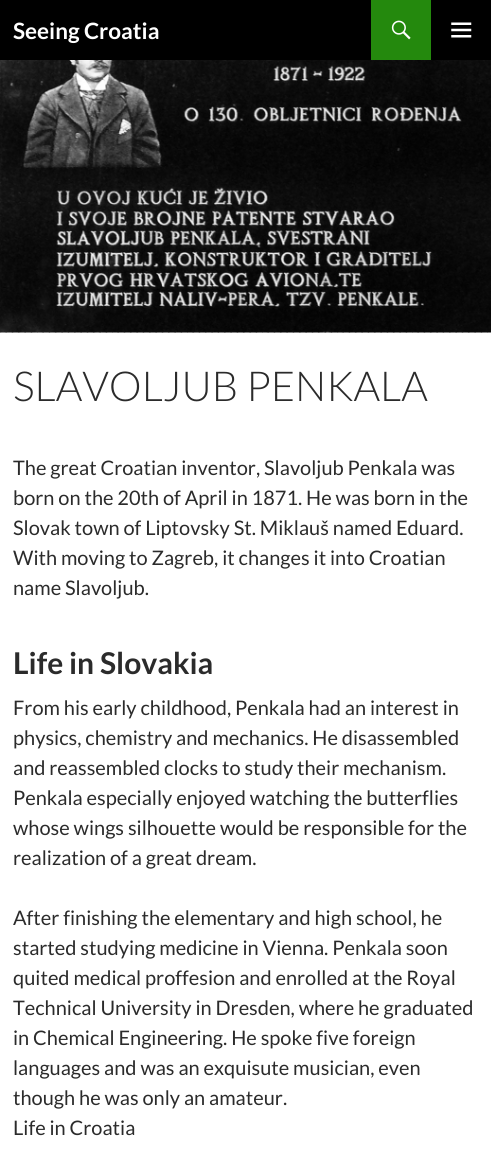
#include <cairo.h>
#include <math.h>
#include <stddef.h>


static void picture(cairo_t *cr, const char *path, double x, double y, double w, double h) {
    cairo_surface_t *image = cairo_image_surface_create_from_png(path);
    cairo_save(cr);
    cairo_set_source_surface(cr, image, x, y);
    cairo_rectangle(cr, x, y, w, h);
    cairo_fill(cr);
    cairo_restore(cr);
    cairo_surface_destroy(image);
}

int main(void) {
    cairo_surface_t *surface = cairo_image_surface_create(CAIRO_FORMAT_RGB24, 491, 1161);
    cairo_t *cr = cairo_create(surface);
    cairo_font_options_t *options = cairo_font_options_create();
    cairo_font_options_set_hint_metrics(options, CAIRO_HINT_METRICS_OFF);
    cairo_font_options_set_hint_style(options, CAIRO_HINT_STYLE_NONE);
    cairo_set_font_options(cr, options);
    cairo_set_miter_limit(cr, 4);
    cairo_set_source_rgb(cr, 1, 1, 1);
    cairo_paint(cr);
    cairo_set_source_rgb(cr, 0, 0, 0);
    cairo_rectangle(cr, 0, 0, 491, 60);
    cairo_fill(cr);
    cairo_select_font_face(cr, "Lato", CAIRO_FONT_SLANT_NORMAL, CAIRO_FONT_WEIGHT_BOLD);
    cairo_set_font_size(cr, 22.5);
    cairo_set_source_rgb(cr, 1, 1, 1);
    cairo_move_to(cr, 13, 39);
    cairo_show_text(cr, "Seeing Croatia");
    cairo_set_source_rgb(cr, 0.141, 0.537, 0.051);
    cairo_rectangle(cr, 371, 0, 60, 60);
    cairo_fill(cr);
    picture(cr, "img1.png", 391, 20, 20, 20);
    picture(cr, "img2.png", 451, 22, 21, 16);
    cairo_set_source_rgb(cr, 0.698, 0.698, 0.698);
    cairo_rectangle(cr, 0, 332, 488, 1);
    cairo_fill(cr);
    picture(cr, "img3.png", 0, 332, 491, 1);
    picture(cr, "img4.png", 0, 60, 491, 273);
    cairo_select_font_face(cr, "Lato Light", CAIRO_FONT_SLANT_NORMAL, CAIRO_FONT_WEIGHT_NORMAL);
    cairo_set_font_size(cr, 41.25);
    cairo_set_source_rgb(cr, 0.169, 0.169, 0.169);
    cairo_move_to(cr, 13, 401);
    cairo_show_text(cr, "SLAVOLJUB PENKALA");
    cairo_select_font_face(cr, "Lato", CAIRO_FONT_SLANT_NORMAL, CAIRO_FONT_WEIGHT_NORMAL);
    cairo_set_font_size(cr, 20);
    cairo_move_to(cr, 13, 475);
    cairo_show_text(cr, "The great Croatian inventor, Slavoljub Penkala was");
    cairo_move_to(cr, 13, 505);
    cairo_show_text(cr, "born on the 20th of April in 1871. He was born in the");
    cairo_move_to(cr, 13, 535);
    cairo_show_text(cr, "Slovak town of Liptovsky St. Miklauš named Eduard.");
    cairo_move_to(cr, 13, 565);
    cairo_show_text(cr, "With moving to Zagreb, it changes it into Croatian");
    cairo_move_to(cr, 13, 595);
    cairo_show_text(cr, "name Slavoljub.");
    cairo_select_font_face(cr, "Lato", CAIRO_FONT_SLANT_NORMAL, CAIRO_FONT_WEIGHT_BOLD);
    cairo_set_font_size(cr, 30);
    cairo_move_to(cr, 13, 674);
    cairo_show_text(cr, "Life in Slovakia");
    cairo_select_font_face(cr, "Lato", CAIRO_FONT_SLANT_NORMAL, CAIRO_FONT_WEIGHT_NORMAL);
    cairo_set_font_size(cr, 20);
    cairo_move_to(cr, 13, 715);
    cairo_show_text(cr, "From his early childhood, Penkala had an interest in");
    cairo_move_to(cr, 13, 745);
    cairo_show_text(cr, "physics, chemistry and mechanics. He disassembled");
    cairo_move_to(cr, 13, 775);
    cairo_show_text(cr, "and reassembled clocks to study their mechanism.");
    cairo_move_to(cr, 13, 805);
    cairo_show_text(cr, "Penkala especially enjoyed watching the butterflies");
    cairo_move_to(cr, 13, 835);
    cairo_show_text(cr, "whose wings silhouette would be responsible for the");
    cairo_move_to(cr, 13, 865);
    cairo_show_text(cr, "realization of a great dream.");
    cairo_move_to(cr, 13, 925);
    cairo_show_text(cr, "After finishing the elementary and high school, he");
    cairo_move_to(cr, 13, 955);
    cairo_show_text(cr, "started studying medicine in Vienna. Penkala soon");
    cairo_move_to(cr, 13, 985);
    cairo_show_text(cr, "quited medical proffesion and enrolled at the Royal");
    cairo_move_to(cr, 13, 1015);
    cairo_show_text(cr, "Technical University in Dresden, where he graduated");
    cairo_move_to(cr, 13, 1045);
    cairo_show_text(cr, "in Chemical Engineering. He spoke five foreign");
    cairo_move_to(cr, 13, 1075);
    cairo_show_text(cr, "languages and was an exquisute musician, even");
    cairo_move_to(cr, 13, 1105);
    cairo_show_text(cr, "though he was only an amateur.");
    cairo_move_to(cr, 13, 1135);
    cairo_show_text(cr, "Life in Croatia");
    cairo_surface_write_to_png(surface, "page.png");
    cairo_font_options_destroy(options);
    cairo_destroy(cr);
    cairo_surface_destroy(surface);
    return 0;
}
